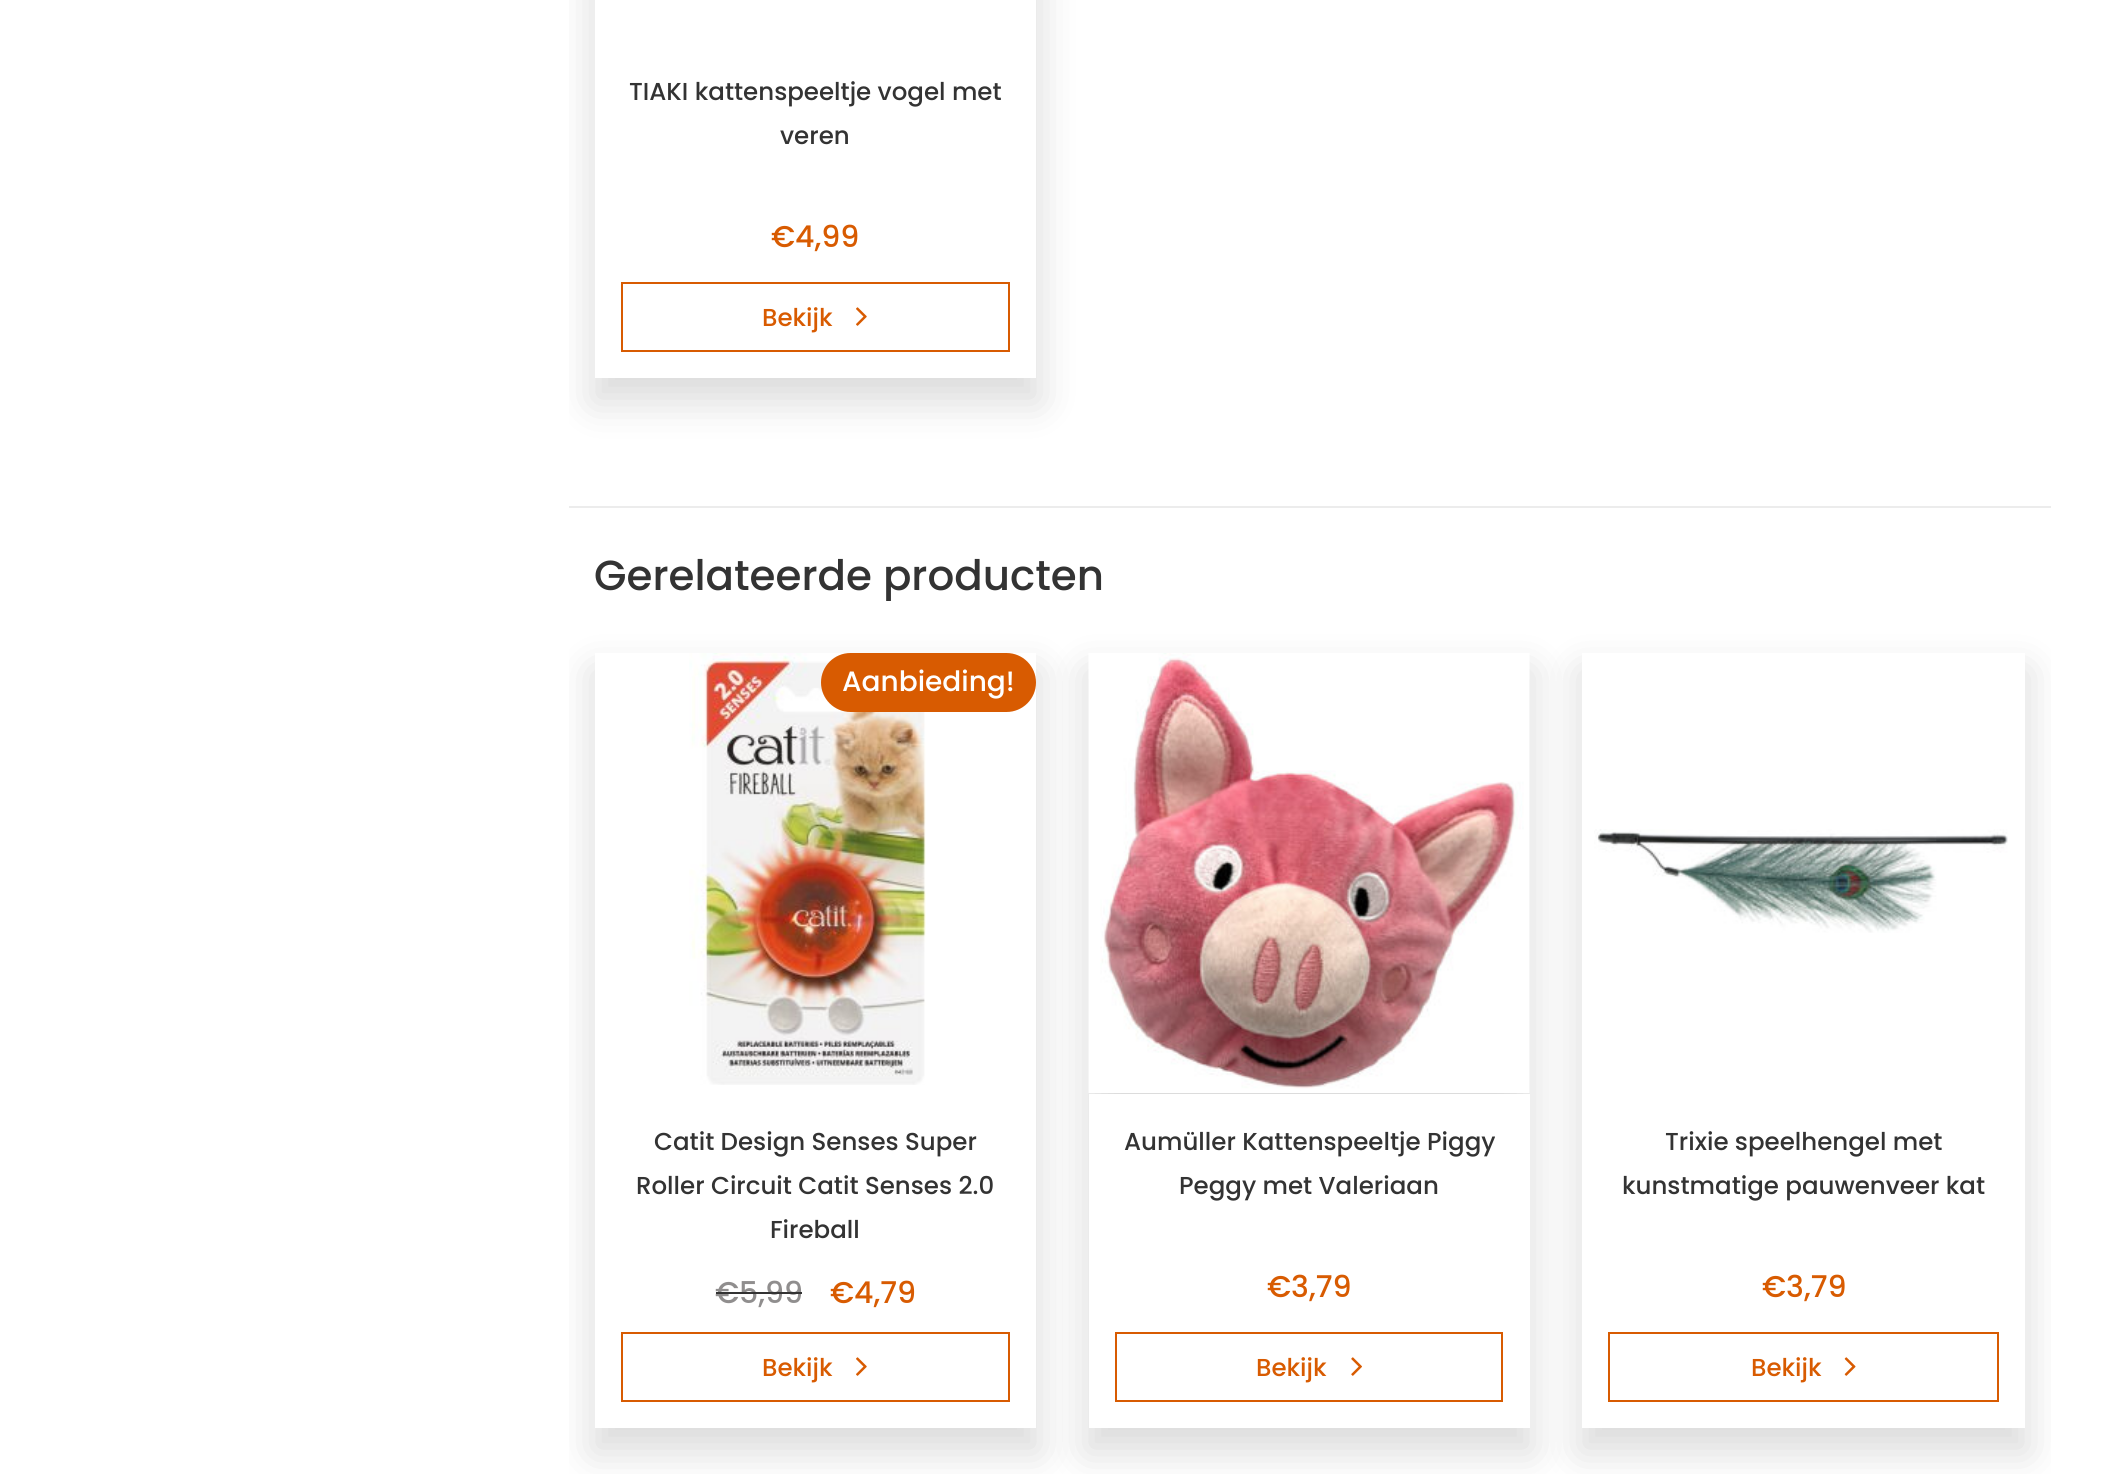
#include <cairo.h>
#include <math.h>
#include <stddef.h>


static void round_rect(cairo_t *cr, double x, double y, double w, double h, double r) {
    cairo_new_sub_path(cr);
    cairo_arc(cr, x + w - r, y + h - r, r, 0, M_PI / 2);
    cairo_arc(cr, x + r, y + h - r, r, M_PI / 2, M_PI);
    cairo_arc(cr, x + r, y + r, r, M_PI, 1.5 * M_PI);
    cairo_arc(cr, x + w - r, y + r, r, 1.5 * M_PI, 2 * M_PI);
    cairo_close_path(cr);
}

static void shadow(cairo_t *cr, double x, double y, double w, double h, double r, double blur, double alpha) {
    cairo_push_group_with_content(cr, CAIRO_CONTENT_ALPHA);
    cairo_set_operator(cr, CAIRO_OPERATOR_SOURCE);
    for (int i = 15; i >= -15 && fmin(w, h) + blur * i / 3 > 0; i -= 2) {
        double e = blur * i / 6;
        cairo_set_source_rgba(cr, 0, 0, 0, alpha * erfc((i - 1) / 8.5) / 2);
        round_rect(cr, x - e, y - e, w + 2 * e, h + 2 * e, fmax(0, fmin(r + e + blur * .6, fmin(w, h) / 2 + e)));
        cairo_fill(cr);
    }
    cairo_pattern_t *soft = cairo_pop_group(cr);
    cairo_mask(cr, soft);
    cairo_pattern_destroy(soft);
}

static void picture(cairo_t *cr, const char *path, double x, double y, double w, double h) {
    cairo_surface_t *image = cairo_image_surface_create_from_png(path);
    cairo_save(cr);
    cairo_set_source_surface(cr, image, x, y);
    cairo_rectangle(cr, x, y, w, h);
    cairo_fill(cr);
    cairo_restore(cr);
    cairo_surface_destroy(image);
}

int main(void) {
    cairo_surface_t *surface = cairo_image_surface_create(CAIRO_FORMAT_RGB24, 2107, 1474);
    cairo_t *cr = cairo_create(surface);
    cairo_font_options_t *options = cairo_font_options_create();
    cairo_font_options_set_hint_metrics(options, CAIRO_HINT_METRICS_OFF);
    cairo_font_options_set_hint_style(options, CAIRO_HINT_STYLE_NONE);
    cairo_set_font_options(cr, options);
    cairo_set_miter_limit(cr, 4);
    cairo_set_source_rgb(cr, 1, 1, 1);
    cairo_paint(cr);
    cairo_save(cr);
    cairo_rectangle(cr, 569, 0, 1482, 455);
    cairo_clip(cr);
    cairo_set_fill_rule(cr, CAIRO_FILL_RULE_EVEN_ODD);
    cairo_new_path(cr);
    cairo_move_to(cr, 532, 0);
    cairo_line_to(cr, 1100, 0);
    cairo_line_to(cr, 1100, 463);
    cairo_line_to(cr, 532, 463);
    cairo_close_path(cr);
    cairo_move_to(cr, 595, -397);
    cairo_line_to(cr, 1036, -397);
    cairo_line_to(cr, 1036, 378);
    cairo_line_to(cr, 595, 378);
    cairo_close_path(cr);
    cairo_clip(cr);
    cairo_set_source_rgb(cr, 0, 0, 0);
    shadow(cr, 592, -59, 448, 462, 0, 19.5, 0.14);
    cairo_restore(cr);
    cairo_select_font_face(cr, "Poppins Medium", CAIRO_FONT_SLANT_NORMAL, CAIRO_FONT_WEIGHT_NORMAL);
    cairo_set_font_size(cr, 24.5);
    cairo_set_source_rgb(cr, 0.2, 0.2, 0.2);
    cairo_move_to(cr, 629, 100);
    cairo_show_text(cr, "TIAKI kattenspeeltje vogel met");
    cairo_move_to(cr, 780, 144);
    cairo_show_text(cr, "veren");
    cairo_set_font_size(cr, 30);
    cairo_set_source_rgb(cr, 0.847, 0.357, 0.004);
    cairo_move_to(cr, 771, 247);
    cairo_show_text(cr, "€4,99");
    cairo_rectangle(cr, 622, 283, 387, 68);
    cairo_stroke(cr);
    cairo_set_font_size(cr, 24.5);
    cairo_move_to(cr, 762, 326);
    cairo_show_text(cr, "Bekijk");
    picture(cr, "img1.png", 856, 307, 11, 19);
    cairo_set_source_rgb(cr, 0.922, 0.922, 0.922);
    cairo_rectangle(cr, 569, 506, 1482, 2);
    cairo_fill(cr);
    cairo_set_font_size(cr, 42);
    cairo_set_source_rgb(cr, 0.2, 0.2, 0.2);
    cairo_move_to(cr, 594, 590);
    cairo_show_text(cr, "Gerelateerde producten");
    cairo_save(cr);
    cairo_rectangle(cr, 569, 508, 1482, 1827);
    cairo_clip(cr);
    cairo_set_fill_rule(cr, CAIRO_FILL_RULE_EVEN_ODD);
    cairo_new_path(cr);
    cairo_move_to(cr, 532, 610);
    cairo_line_to(cr, 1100, 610);
    cairo_line_to(cr, 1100, 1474);
    cairo_line_to(cr, 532, 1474);
    cairo_close_path(cr);
    cairo_move_to(cr, 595, 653);
    cairo_line_to(cr, 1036, 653);
    cairo_line_to(cr, 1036, 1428);
    cairo_line_to(cr, 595, 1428);
    cairo_close_path(cr);
    cairo_clip(cr);
    cairo_set_source_rgb(cr, 0, 0, 0);
    shadow(cr, 592, 670, 448, 783, 0, 19.5, 0.14);
    cairo_restore(cr);
    picture(cr, "img2.png", 689, 653, 237, 432);
    cairo_set_source_rgb(cr, 0.847, 0.357, 0.004);
    round_rect(cr, 821, 653, 215, 59, 29.5);
    cairo_fill(cr);
    cairo_set_font_size(cr, 28);
    cairo_set_source_rgb(cr, 1, 1, 1);
    cairo_move_to(cr, 842, 691);
    cairo_show_text(cr, "Aanbieding!");
    cairo_set_font_size(cr, 24.5);
    cairo_set_source_rgb(cr, 0.2, 0.2, 0.2);
    cairo_move_to(cr, 654, 1150);
    cairo_show_text(cr, "Catit Design Senses Super");
    cairo_move_to(cr, 636, 1194);
    cairo_show_text(cr, "Roller Circuit Catit Senses 2.0");
    cairo_move_to(cr, 770, 1238);
    cairo_show_text(cr, "Fireball");
    cairo_set_font_size(cr, 30);
    cairo_set_source_rgb(cr, 0.565, 0.557, 0.557);
    cairo_move_to(cr, 715, 1303);
    cairo_show_text(cr, "€5,99");
    cairo_set_source_rgb(cr, 0.2, 0.2, 0.2);
    cairo_rectangle(cr, 716, 1292, 86, 2);
    cairo_fill(cr);
    cairo_set_source_rgb(cr, 0.847, 0.357, 0.004);
    cairo_move_to(cr, 830, 1303);
    cairo_show_text(cr, "€4,79");
    cairo_rectangle(cr, 622, 1333, 387, 68);
    cairo_stroke(cr);
    cairo_set_font_size(cr, 24.5);
    cairo_move_to(cr, 762, 1376);
    cairo_show_text(cr, "Bekijk");
    picture(cr, "img1.png", 856, 1357, 11, 19);
    cairo_set_source_rgb(cr, 0, 0, 0);
    shadow(cr, 1085, 670, 448, 783, 0, 19.5, 0.14);
    picture(cr, "img3.png", 1088, 653, 442, 440);
    cairo_set_source_rgb(cr, 1, 1, 1);
    cairo_rectangle(cr, 1089, 1094, 441, 334);
    cairo_fill(cr);
    cairo_set_source_rgb(cr, 0.2, 0.2, 0.2);
    cairo_move_to(cr, 1124, 1150);
    cairo_show_text(cr, "Aumüller Kattenspeeltje Piggy");
    cairo_move_to(cr, 1179, 1194);
    cairo_show_text(cr, "Peggy met Valeriaan");
    cairo_set_font_size(cr, 30);
    cairo_set_source_rgb(cr, 0.847, 0.357, 0.004);
    cairo_move_to(cr, 1267, 1297);
    cairo_show_text(cr, "€3,79");
    cairo_rectangle(cr, 1116, 1333, 386, 68);
    cairo_stroke(cr);
    cairo_set_font_size(cr, 24.5);
    cairo_move_to(cr, 1256, 1376);
    cairo_show_text(cr, "Bekijk");
    picture(cr, "img4.png", 1351, 1357, 11, 19);
    cairo_save(cr);
    cairo_rectangle(cr, 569, 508, 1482, 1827);
    cairo_clip(cr);
    cairo_set_fill_rule(cr, CAIRO_FILL_RULE_EVEN_ODD);
    cairo_new_path(cr);
    cairo_move_to(cr, 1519, 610);
    cairo_line_to(cr, 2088, 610);
    cairo_line_to(cr, 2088, 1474);
    cairo_line_to(cr, 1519, 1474);
    cairo_close_path(cr);
    cairo_move_to(cr, 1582, 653);
    cairo_line_to(cr, 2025, 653);
    cairo_line_to(cr, 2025, 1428);
    cairo_line_to(cr, 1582, 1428);
    cairo_close_path(cr);
    cairo_clip(cr);
    cairo_set_source_rgb(cr, 0, 0, 0);
    shadow(cr, 1579, 670, 449, 783, 0, 19.5, 0.14);
    cairo_restore(cr);
    picture(cr, "img5.png", 1594, 829, 414, 104);
    cairo_set_source_rgb(cr, 1, 1, 1);
    cairo_rectangle(cr, 2024, 1094, 1, 334);
    cairo_fill(cr);
    cairo_set_source_rgb(cr, 0.2, 0.2, 0.2);
    cairo_move_to(cr, 1665, 1150);
    cairo_show_text(cr, "Trixie speelhengel met");
    cairo_move_to(cr, 1622, 1194);
    cairo_show_text(cr, "kunstmatige pauwenveer kat");
    cairo_set_font_size(cr, 30);
    cairo_set_source_rgb(cr, 0.847, 0.357, 0.004);
    cairo_move_to(cr, 1762, 1297);
    cairo_show_text(cr, "€3,79");
    cairo_rectangle(cr, 1609, 1333, 389, 68);
    cairo_stroke(cr);
    cairo_set_font_size(cr, 24.5);
    cairo_move_to(cr, 1751, 1376);
    cairo_show_text(cr, "Bekijk");
    picture(cr, "img6.png", 1844, 1357, 12, 19);
    cairo_surface_write_to_png(surface, "page.png");
    cairo_font_options_destroy(options);
    cairo_destroy(cr);
    cairo_surface_destroy(surface);
    return 0;
}
